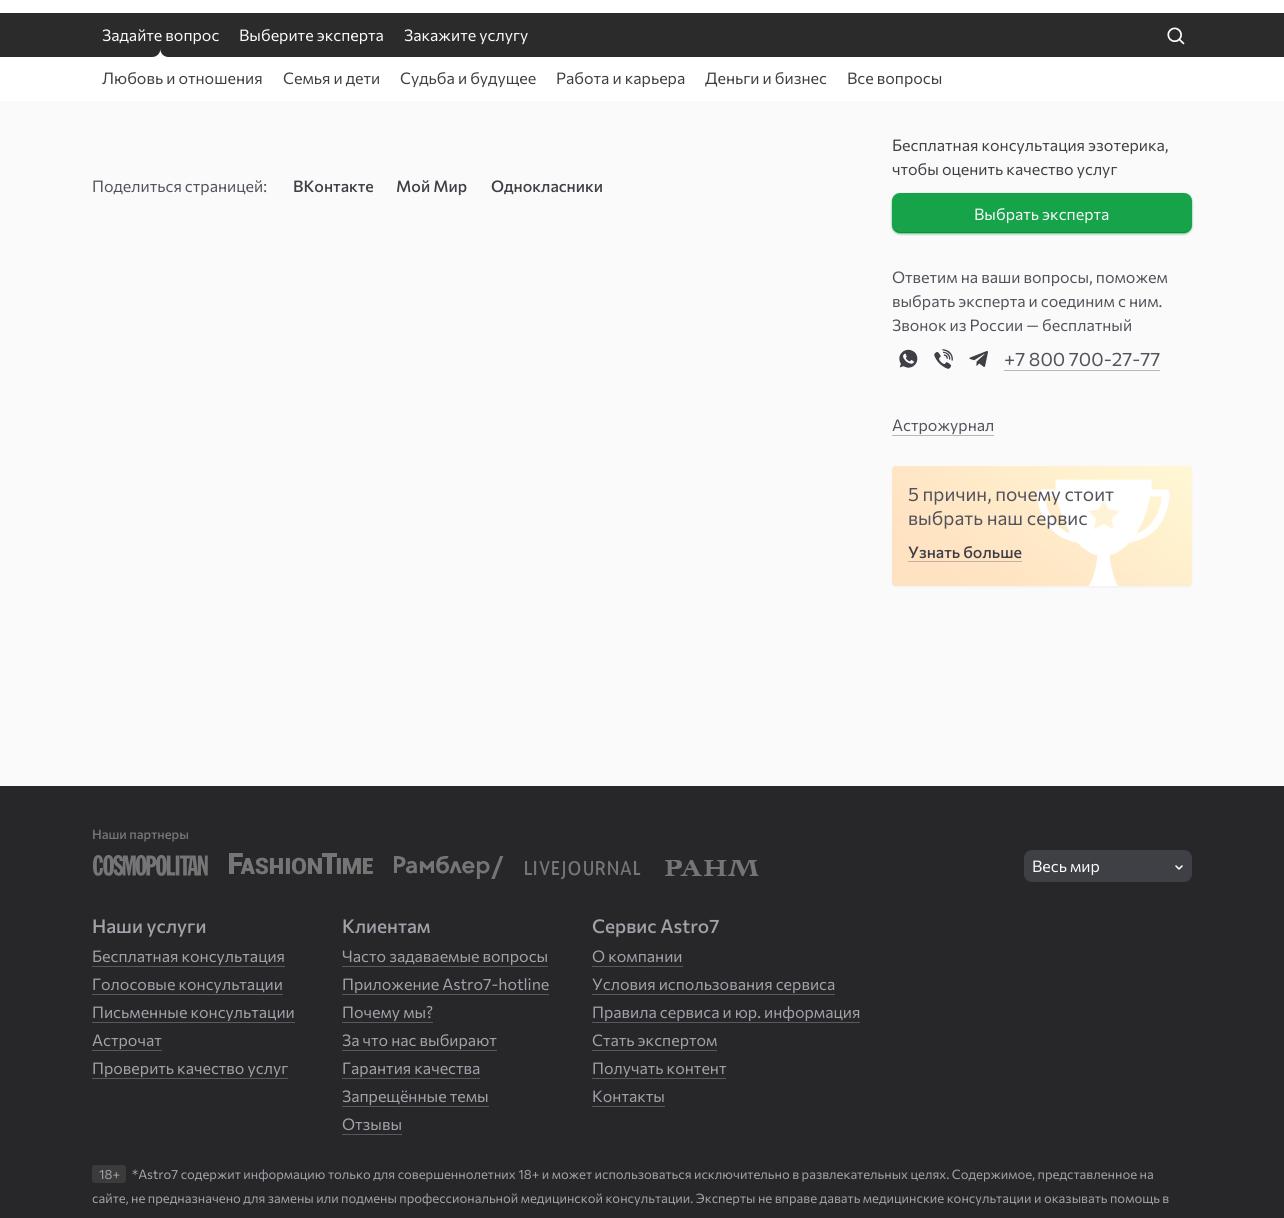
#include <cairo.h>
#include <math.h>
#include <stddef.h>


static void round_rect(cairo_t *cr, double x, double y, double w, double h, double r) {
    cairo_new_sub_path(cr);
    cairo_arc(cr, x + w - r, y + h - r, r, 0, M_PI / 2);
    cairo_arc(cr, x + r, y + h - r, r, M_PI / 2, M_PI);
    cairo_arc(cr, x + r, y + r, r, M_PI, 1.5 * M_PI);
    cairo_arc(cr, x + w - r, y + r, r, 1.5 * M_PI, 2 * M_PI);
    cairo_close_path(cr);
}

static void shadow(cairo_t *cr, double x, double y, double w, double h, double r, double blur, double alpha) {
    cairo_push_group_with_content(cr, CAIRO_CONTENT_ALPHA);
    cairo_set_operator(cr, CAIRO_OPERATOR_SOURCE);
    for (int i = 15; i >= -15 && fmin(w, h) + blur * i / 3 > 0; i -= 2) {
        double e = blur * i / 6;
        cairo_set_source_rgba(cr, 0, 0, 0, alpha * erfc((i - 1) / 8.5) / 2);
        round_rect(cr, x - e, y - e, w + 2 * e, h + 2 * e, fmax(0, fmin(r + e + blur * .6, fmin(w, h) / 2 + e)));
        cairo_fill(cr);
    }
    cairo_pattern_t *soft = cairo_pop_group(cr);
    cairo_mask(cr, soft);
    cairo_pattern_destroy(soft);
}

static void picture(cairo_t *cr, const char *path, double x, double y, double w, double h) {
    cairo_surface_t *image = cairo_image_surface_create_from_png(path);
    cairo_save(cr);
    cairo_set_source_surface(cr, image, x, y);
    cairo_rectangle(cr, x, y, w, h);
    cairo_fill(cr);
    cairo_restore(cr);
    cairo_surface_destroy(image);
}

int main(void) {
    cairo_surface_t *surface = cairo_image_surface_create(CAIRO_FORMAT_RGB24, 1284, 1218);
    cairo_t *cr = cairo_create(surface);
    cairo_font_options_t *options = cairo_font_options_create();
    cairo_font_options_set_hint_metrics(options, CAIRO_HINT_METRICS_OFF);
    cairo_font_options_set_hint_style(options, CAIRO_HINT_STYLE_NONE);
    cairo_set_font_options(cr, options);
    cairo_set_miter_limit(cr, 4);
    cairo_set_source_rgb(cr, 0.98, 0.98, 0.98);
    cairo_paint(cr);
    picture(cr, "img1.png", 0, 13, 1284, 88);
    cairo_set_source_rgb(cr, 1, 1, 1);
    cairo_rectangle(cr, 0, 0, 1284, 13);
    cairo_fill(cr);
    cairo_select_font_face(cr, "Commissioner Thin", CAIRO_FONT_SLANT_NORMAL, CAIRO_FONT_WEIGHT_NORMAL);
    cairo_set_font_size(cr, 16);
    cairo_set_source_rgb(cr, 0.98, 0.98, 0.98);
    cairo_move_to(cr, 102, 41);
    cairo_show_text(cr, "Задайте вопрос");
    picture(cr, "img2.png", 152, 49, 16, 8);
    cairo_set_source_rgb(cr, 0.247, 0.247, 0.275);
    cairo_move_to(cr, 102, 84);
    cairo_show_text(cr, "Любовь и отношения");
    cairo_move_to(cr, 283, 84);
    cairo_show_text(cr, "Семья и дети");
    cairo_move_to(cr, 400, 84);
    cairo_show_text(cr, "Судьба и будущее");
    cairo_move_to(cr, 556, 84);
    cairo_show_text(cr, "Работа и карьера");
    cairo_move_to(cr, 705, 84);
    cairo_show_text(cr, "Деньги и бизнес");
    cairo_move_to(cr, 847, 84);
    cairo_show_text(cr, "Все вопросы");
    cairo_set_source_rgb(cr, 0.98, 0.98, 0.98);
    cairo_move_to(cr, 239, 41);
    cairo_show_text(cr, "Выберите эксперта");
    cairo_move_to(cr, 404, 41);
    cairo_show_text(cr, "Закажите услугу");
    picture(cr, "img3.png", 1167, 27, 18, 18);
    cairo_set_source_rgb(cr, 0.322, 0.322, 0.357);
    cairo_move_to(cr, 92, 192);
    cairo_show_text(cr, "Поделиться страницей:");
    cairo_select_font_face(cr, "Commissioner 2 Thin", CAIRO_FONT_SLANT_NORMAL, CAIRO_FONT_WEIGHT_NORMAL);
    cairo_set_source_rgb(cr, 0.247, 0.247, 0.275);
    cairo_move_to(cr, 293, 192);
    cairo_show_text(cr, "ВКонтакте");
    cairo_move_to(cr, 396, 192);
    cairo_show_text(cr, "Мой Мир");
    cairo_move_to(cr, 491, 192);
    cairo_show_text(cr, "Однокласники");
    cairo_select_font_face(cr, "Commissioner Thin", CAIRO_FONT_SLANT_NORMAL, CAIRO_FONT_WEIGHT_NORMAL);
    cairo_move_to(cr, 892, 151);
    cairo_show_text(cr, "Бесплатная консультация эзотерика,");
    cairo_move_to(cr, 892, 175);
    cairo_show_text(cr, "чтобы оценить качество услуг");
    cairo_set_source_rgb(cr, 0.086, 0.639, 0.29);
    shadow(cr, 892, 194, 300, 40, 8, 1, 0.7);
    cairo_set_source_rgb(cr, 0.086, 0.639, 0.29);
    round_rect(cr, 892, 193, 300, 40, 8);
    cairo_fill(cr);
    cairo_set_source_rgba(cr, 0, 0, 0, 0.15);
    cairo_new_path(cr);
    cairo_move_to(cr, 892, 224);
    cairo_line_to(cr, 892, 225);
    cairo_curve_to(cr, 892, 229, 896, 233, 900, 233);
    cairo_line_to(cr, 1184, 233);
    cairo_curve_to(cr, 1188, 233, 1192, 229, 1192, 225);
    cairo_line_to(cr, 1192, 224);
    cairo_curve_to(cr, 1192, 228, 1188, 232, 1184, 232);
    cairo_line_to(cr, 900, 232);
    cairo_curve_to(cr, 896, 232, 892, 228, 892, 224);
    cairo_close_path(cr);
    cairo_fill(cr);
    cairo_set_source_rgb(cr, 0.98, 0.98, 0.98);
    cairo_move_to(cr, 974, 220);
    cairo_show_text(cr, "Выбрать эксперта");
    cairo_set_source_rgb(cr, 0.322, 0.322, 0.357);
    cairo_move_to(cr, 892, 283);
    cairo_show_text(cr, "Ответим на ваши вопросы, поможем");
    cairo_move_to(cr, 892, 307);
    cairo_show_text(cr, "выбрать эксперта и соединим с ним.");
    cairo_move_to(cr, 892, 331);
    cairo_show_text(cr, "Звонок из России — бесплатный");
    picture(cr, "img4.png", 899, 349, 19, 19);
    picture(cr, "img5.png", 934, 349, 19, 20);
    picture(cr, "img6.png", 969, 351, 19, 16);
    cairo_set_font_size(cr, 19);
    cairo_move_to(cr, 1004, 366);
    cairo_show_text(cr, "+7 800 700-27-77");
    cairo_set_source_rgb(cr, 0.718, 0.718, 0.729);
    cairo_rectangle(cr, 1004, 370, 156, 1);
    cairo_fill(cr);
    cairo_set_font_size(cr, 16);
    cairo_set_source_rgb(cr, 0.322, 0.322, 0.357);
    cairo_move_to(cr, 892, 431);
    cairo_show_text(cr, "Астрожурнал");
    cairo_set_source_rgb(cr, 0.718, 0.718, 0.729);
    cairo_rectangle(cr, 892, 435, 102, 1);
    cairo_fill(cr);
    cairo_set_source_rgb(cr, 0, 0, 0);
    shadow(cr, 892, 467, 300, 120, 4, 1, 0.05);
    picture(cr, "img7.png", 892, 466, 300, 120);
    cairo_set_font_size(cr, 19);
    cairo_set_source_rgb(cr, 0.322, 0.322, 0.357);
    cairo_move_to(cr, 908, 501);
    cairo_show_text(cr, "5 причин, почему стоит");
    cairo_move_to(cr, 908, 525);
    cairo_show_text(cr, "выбрать наш сервис");
    cairo_set_source_rgba(cr, 0.247, 0.247, 0.275, 0.3);
    cairo_rectangle(cr, 908, 561, 114, 1);
    cairo_fill(cr);
    cairo_select_font_face(cr, "Commissioner 2 Thin", CAIRO_FONT_SLANT_NORMAL, CAIRO_FONT_WEIGHT_NORMAL);
    cairo_set_font_size(cr, 16);
    cairo_set_source_rgb(cr, 0.247, 0.247, 0.275);
    cairo_move_to(cr, 908, 558);
    cairo_show_text(cr, "Узнать больше");
    cairo_set_source_rgb(cr, 0.153, 0.153, 0.165);
    cairo_rectangle(cr, 0, 786, 1284, 432);
    cairo_fill(cr);
    cairo_set_font_size(cr, 13);
    cairo_set_source_rgb(cr, 0.459, 0.459, 0.463);
    cairo_move_to(cr, 92, 839);
    cairo_show_text(cr, "Наши партнеры");
    picture(cr, "img8.png", 93, 855, 115, 21);
    picture(cr, "img9.png", 229, 853, 144, 22);
    picture(cr, "img10.png", 394, 856, 110, 23);
    picture(cr, "img11.png", 525, 861, 116, 19);
    picture(cr, "img12.png", 665, 860, 94, 16);
    cairo_set_source_rgb(cr, 0.247, 0.247, 0.275);
    round_rect(cr, 1024, 850, 168, 32, 8);
    cairo_fill(cr);
    cairo_select_font_face(cr, "Commissioner Thin", CAIRO_FONT_SLANT_NORMAL, CAIRO_FONT_WEIGHT_NORMAL);
    cairo_set_font_size(cr, 16);
    cairo_set_source_rgb(cr, 0.98, 0.98, 0.98);
    cairo_move_to(cr, 1032, 872);
    cairo_show_text(cr, "Весь мир");
    cairo_new_path(cr);
    cairo_move_to(cr, 1176, 866);
    cairo_line_to(cr, 1179, 869);
    cairo_line_to(cr, 1182, 866);
    cairo_set_source_rgb(cr, 1, 1, 1);
    cairo_set_line_width(cr, 1.5);
    cairo_set_line_cap(cr, CAIRO_LINE_CAP_ROUND);
    cairo_set_line_join(cr, CAIRO_LINE_JOIN_ROUND);
    cairo_stroke(cr);
    cairo_select_font_face(cr, "Commissioner 2 Thin", CAIRO_FONT_SLANT_NORMAL, CAIRO_FONT_WEIGHT_NORMAL);
    cairo_set_font_size(cr, 19);
    cairo_set_source_rgb(cr, 0.631, 0.631, 0.667);
    cairo_move_to(cr, 92, 933);
    cairo_show_text(cr, "Наши услуги");
    cairo_select_font_face(cr, "Commissioner Thin", CAIRO_FONT_SLANT_NORMAL, CAIRO_FONT_WEIGHT_NORMAL);
    cairo_set_font_size(cr, 16);
    cairo_move_to(cr, 92, 962);
    cairo_show_text(cr, "Бесплатная консультация");
    cairo_set_source_rgb(cr, 0.345, 0.345, 0.365);
    cairo_rectangle(cr, 92, 966, 193, 1);
    cairo_fill(cr);
    cairo_set_source_rgb(cr, 0.631, 0.631, 0.667);
    cairo_move_to(cr, 92, 990);
    cairo_show_text(cr, "Голосовые консультации");
    cairo_set_source_rgb(cr, 0.345, 0.345, 0.365);
    cairo_rectangle(cr, 92, 994, 191, 1);
    cairo_fill(cr);
    cairo_set_source_rgb(cr, 0.631, 0.631, 0.667);
    cairo_move_to(cr, 92, 1018);
    cairo_show_text(cr, "Письменные консультации");
    cairo_set_source_rgb(cr, 0.345, 0.345, 0.365);
    cairo_rectangle(cr, 92, 1022, 203, 1);
    cairo_fill(cr);
    cairo_set_source_rgb(cr, 0.631, 0.631, 0.667);
    cairo_move_to(cr, 92, 1046);
    cairo_show_text(cr, "Астрочат");
    cairo_set_source_rgb(cr, 0.345, 0.345, 0.365);
    cairo_rectangle(cr, 92, 1050, 70, 1);
    cairo_fill(cr);
    cairo_set_source_rgb(cr, 0.631, 0.631, 0.667);
    cairo_move_to(cr, 92, 1074);
    cairo_show_text(cr, "Проверить качество услуг");
    cairo_set_source_rgb(cr, 0.345, 0.345, 0.365);
    cairo_rectangle(cr, 92, 1078, 196, 1);
    cairo_fill(cr);
    cairo_select_font_face(cr, "Commissioner 2 Thin", CAIRO_FONT_SLANT_NORMAL, CAIRO_FONT_WEIGHT_NORMAL);
    cairo_set_font_size(cr, 19);
    cairo_set_source_rgb(cr, 0.631, 0.631, 0.667);
    cairo_move_to(cr, 342, 933);
    cairo_show_text(cr, "Клиентам");
    cairo_select_font_face(cr, "Commissioner Thin", CAIRO_FONT_SLANT_NORMAL, CAIRO_FONT_WEIGHT_NORMAL);
    cairo_set_font_size(cr, 16);
    cairo_move_to(cr, 342, 962);
    cairo_show_text(cr, "Часто задаваемые вопросы");
    cairo_set_source_rgb(cr, 0.345, 0.345, 0.365);
    cairo_rectangle(cr, 342, 966, 206, 1);
    cairo_fill(cr);
    cairo_set_source_rgb(cr, 0.631, 0.631, 0.667);
    cairo_move_to(cr, 342, 990);
    cairo_show_text(cr, "Приложение Astro7-hotline");
    cairo_set_source_rgb(cr, 0.345, 0.345, 0.365);
    cairo_rectangle(cr, 342, 994, 207, 1);
    cairo_fill(cr);
    cairo_set_source_rgb(cr, 0.631, 0.631, 0.667);
    cairo_move_to(cr, 342, 1018);
    cairo_show_text(cr, "Почему мы?");
    cairo_set_source_rgb(cr, 0.345, 0.345, 0.365);
    cairo_rectangle(cr, 342, 1022, 91, 1);
    cairo_fill(cr);
    cairo_set_source_rgb(cr, 0.631, 0.631, 0.667);
    cairo_move_to(cr, 342, 1046);
    cairo_show_text(cr, "За что нас выбирают");
    cairo_set_source_rgb(cr, 0.345, 0.345, 0.365);
    cairo_rectangle(cr, 342, 1050, 155, 1);
    cairo_fill(cr);
    cairo_set_source_rgb(cr, 0.631, 0.631, 0.667);
    cairo_move_to(cr, 342, 1074);
    cairo_show_text(cr, "Гарантия качества");
    cairo_set_source_rgb(cr, 0.345, 0.345, 0.365);
    cairo_rectangle(cr, 342, 1078, 138, 1);
    cairo_fill(cr);
    cairo_set_source_rgb(cr, 0.631, 0.631, 0.667);
    cairo_move_to(cr, 342, 1102);
    cairo_show_text(cr, "Запрещённые темы");
    cairo_set_source_rgb(cr, 0.345, 0.345, 0.365);
    cairo_rectangle(cr, 342, 1106, 147, 1);
    cairo_fill(cr);
    cairo_set_source_rgb(cr, 0.631, 0.631, 0.667);
    cairo_move_to(cr, 342, 1130);
    cairo_show_text(cr, "Отзывы");
    cairo_set_source_rgb(cr, 0.345, 0.345, 0.365);
    cairo_rectangle(cr, 342, 1134, 60, 1);
    cairo_fill(cr);
    cairo_select_font_face(cr, "Commissioner 2 Thin", CAIRO_FONT_SLANT_NORMAL, CAIRO_FONT_WEIGHT_NORMAL);
    cairo_set_font_size(cr, 19);
    cairo_set_source_rgb(cr, 0.631, 0.631, 0.667);
    cairo_move_to(cr, 592, 933);
    cairo_show_text(cr, "Сервис Astro7");
    cairo_select_font_face(cr, "Commissioner Thin", CAIRO_FONT_SLANT_NORMAL, CAIRO_FONT_WEIGHT_NORMAL);
    cairo_set_font_size(cr, 16);
    cairo_move_to(cr, 592, 962);
    cairo_show_text(cr, "О компании");
    cairo_set_source_rgb(cr, 0.345, 0.345, 0.365);
    cairo_rectangle(cr, 592, 966, 91, 1);
    cairo_fill(cr);
    cairo_set_source_rgb(cr, 0.631, 0.631, 0.667);
    cairo_move_to(cr, 592, 990);
    cairo_show_text(cr, "Условия использования сервиса");
    cairo_set_source_rgb(cr, 0.345, 0.345, 0.365);
    cairo_rectangle(cr, 592, 994, 243, 1);
    cairo_fill(cr);
    cairo_set_source_rgb(cr, 0.631, 0.631, 0.667);
    cairo_move_to(cr, 592, 1018);
    cairo_show_text(cr, "Правила сервиса и юр. информация");
    cairo_set_source_rgb(cr, 0.345, 0.345, 0.365);
    cairo_rectangle(cr, 592, 1022, 268, 1);
    cairo_fill(cr);
    cairo_set_source_rgb(cr, 0.631, 0.631, 0.667);
    cairo_move_to(cr, 592, 1046);
    cairo_show_text(cr, "Стать экспертом");
    cairo_set_source_rgb(cr, 0.345, 0.345, 0.365);
    cairo_rectangle(cr, 592, 1050, 125, 1);
    cairo_fill(cr);
    cairo_set_source_rgb(cr, 0.631, 0.631, 0.667);
    cairo_move_to(cr, 592, 1074);
    cairo_show_text(cr, "Получать контент");
    cairo_set_source_rgb(cr, 0.345, 0.345, 0.365);
    cairo_rectangle(cr, 592, 1078, 134, 1);
    cairo_fill(cr);
    cairo_set_source_rgb(cr, 0.631, 0.631, 0.667);
    cairo_move_to(cr, 592, 1102);
    cairo_show_text(cr, "Контакты");
    cairo_set_source_rgb(cr, 0.345, 0.345, 0.365);
    cairo_rectangle(cr, 592, 1106, 73, 1);
    cairo_fill(cr);
    cairo_set_source_rgb(cr, 0.231, 0.231, 0.231);
    round_rect(cr, 92, 1165, 34, 18, 3);
    cairo_fill(cr);
    cairo_set_font_size(cr, 13);
    cairo_set_source_rgb(cr, 0.631, 0.631, 0.667);
    cairo_move_to(cr, 99, 1179);
    cairo_show_text(cr, "18+");
    cairo_move_to(cr, 132, 1179);
    cairo_show_text(cr, "*Astro7 содержит информацию только для совершеннолетних 18+ и может использоваться исключительно в развлекательных целях. Содержимое, представленное на");
    cairo_move_to(cr, 92, 1203);
    cairo_show_text(cr, "сайте, не предназначено для замены или подмены профессиональной медицинской консультации. Эксперты не вправе давать медицинские консультации и оказывать помощь в");
    cairo_surface_write_to_png(surface, "page.png");
    cairo_font_options_destroy(options);
    cairo_destroy(cr);
    cairo_surface_destroy(surface);
    return 0;
}
